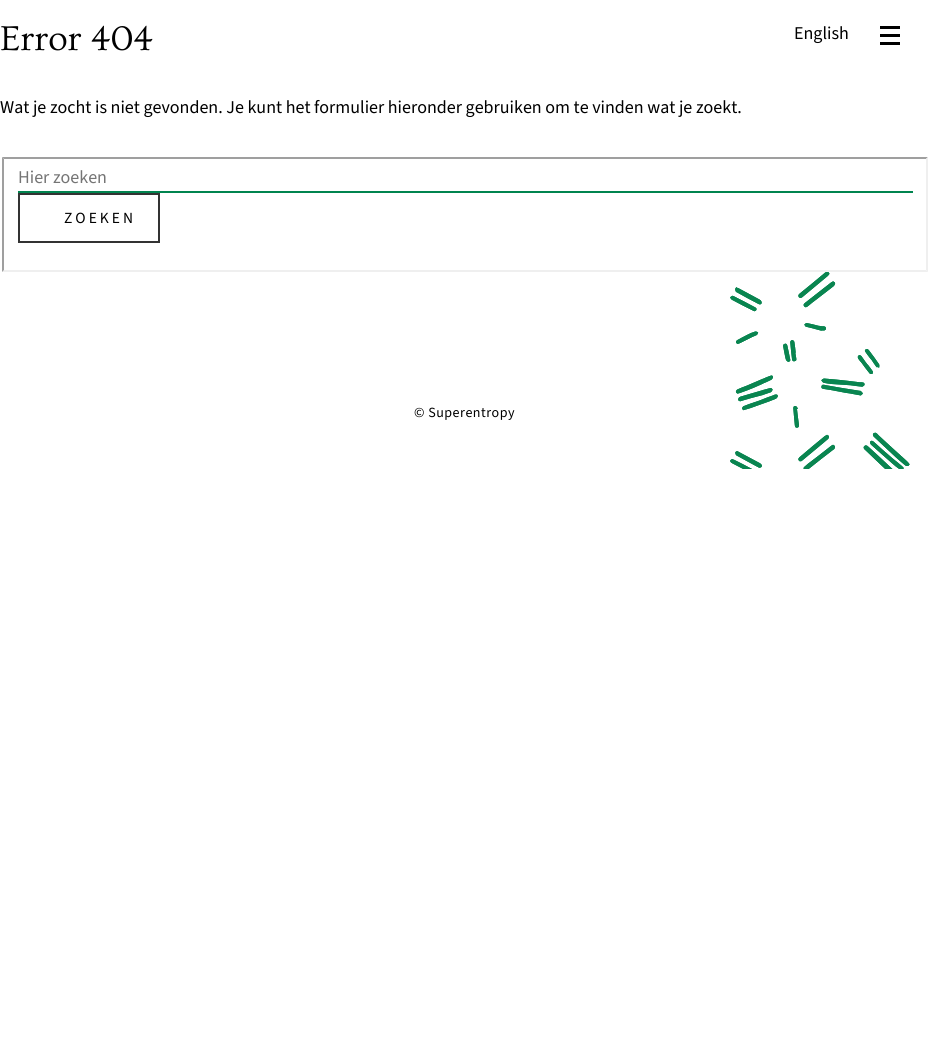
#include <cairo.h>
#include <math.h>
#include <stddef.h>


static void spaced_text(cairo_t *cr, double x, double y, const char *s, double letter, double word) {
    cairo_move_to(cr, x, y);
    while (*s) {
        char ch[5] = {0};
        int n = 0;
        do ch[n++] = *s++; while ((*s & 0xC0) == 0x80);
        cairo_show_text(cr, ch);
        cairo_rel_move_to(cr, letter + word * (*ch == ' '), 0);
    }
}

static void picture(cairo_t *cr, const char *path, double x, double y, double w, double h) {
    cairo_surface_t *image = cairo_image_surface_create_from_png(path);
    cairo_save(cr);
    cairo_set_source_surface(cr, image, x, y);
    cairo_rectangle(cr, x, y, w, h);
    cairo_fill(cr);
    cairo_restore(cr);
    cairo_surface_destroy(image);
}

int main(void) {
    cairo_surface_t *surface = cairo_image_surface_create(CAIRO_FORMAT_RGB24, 930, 1037);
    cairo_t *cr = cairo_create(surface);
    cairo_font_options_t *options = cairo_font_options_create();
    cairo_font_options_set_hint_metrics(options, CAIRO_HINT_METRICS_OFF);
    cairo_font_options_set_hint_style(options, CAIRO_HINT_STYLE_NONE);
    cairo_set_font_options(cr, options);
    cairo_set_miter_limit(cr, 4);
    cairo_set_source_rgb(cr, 1, 1, 1);
    cairo_paint(cr);
    cairo_select_font_face(cr, "Ovo", CAIRO_FONT_SLANT_NORMAL, CAIRO_FONT_WEIGHT_NORMAL);
    cairo_set_font_size(cr, 36);
    cairo_set_source_rgb(cr, 0, 0, 0);
    cairo_move_to(cr, 0, 50);
    cairo_show_text(cr, "Error 404");
    cairo_select_font_face(cr, "Source Sans 3", CAIRO_FONT_SLANT_NORMAL, CAIRO_FONT_WEIGHT_NORMAL);
    cairo_set_font_size(cr, 18);
    cairo_move_to(cr, 0, 113);
    cairo_show_text(cr, "Wat je zocht is niet gevonden. Je kunt het formulier hieronder gebruiken om te vinden wat je zoekt.");
    cairo_set_source_rgb(cr, 0.624, 0.624, 0.624);
    cairo_new_path(cr);
    cairo_move_to(cr, 2, 157);
    cairo_line_to(cr, 928, 157);
    cairo_line_to(cr, 926, 159);
    cairo_line_to(cr, 4, 159);
    cairo_close_path(cr);
    cairo_fill(cr);
    cairo_set_source_rgb(cr, 0.937, 0.937, 0.937);
    cairo_new_path(cr);
    cairo_move_to(cr, 928, 157);
    cairo_line_to(cr, 928, 272);
    cairo_line_to(cr, 926, 270);
    cairo_line_to(cr, 926, 159);
    cairo_close_path(cr);
    cairo_fill(cr);
    cairo_new_path(cr);
    cairo_move_to(cr, 928, 272);
    cairo_line_to(cr, 2, 272);
    cairo_line_to(cr, 4, 270);
    cairo_line_to(cr, 926, 270);
    cairo_close_path(cr);
    cairo_fill(cr);
    cairo_set_source_rgb(cr, 0.624, 0.624, 0.624);
    cairo_new_path(cr);
    cairo_move_to(cr, 2, 272);
    cairo_line_to(cr, 2, 157);
    cairo_line_to(cr, 4, 159);
    cairo_line_to(cr, 4, 270);
    cairo_close_path(cr);
    cairo_fill(cr);
    cairo_set_source_rgb(cr, 0, 0.518, 0.31);
    cairo_rectangle(cr, 18, 191, 895, 2);
    cairo_fill(cr);
    cairo_set_source_rgb(cr, 0.459, 0.459, 0.459);
    cairo_move_to(cr, 18, 183);
    cairo_show_text(cr, "Hier zoeken");
    cairo_rectangle(cr, 19, 194, 140, 48);
    cairo_set_source_rgb(cr, 0.2, 0.2, 0.2);
    cairo_stroke(cr);
    cairo_set_font_size(cr, 15.5);
    cairo_set_source_rgb(cr, 0, 0, 0);
    spaced_text(cr, 64, 223, "ZOEKEN", 3, 0);
    cairo_set_font_size(cr, 18);
    cairo_move_to(cr, 794, 39);
    cairo_show_text(cr, "English");
    cairo_rectangle(cr, 880, 26, 20, 3);
    cairo_fill(cr);
    cairo_rectangle(cr, 880, 34, 20, 3);
    cairo_fill(cr);
    cairo_rectangle(cr, 880, 42, 20, 3);
    cairo_fill(cr);
    picture(cr, "img1.png", 730, 272, 180, 197);
    cairo_set_font_size(cr, 14);
    spaced_text(cr, 414, 417, "© Superentropy", 0.5, 0);
    cairo_surface_write_to_png(surface, "page.png");
    cairo_font_options_destroy(options);
    cairo_destroy(cr);
    cairo_surface_destroy(surface);
    return 0;
}
